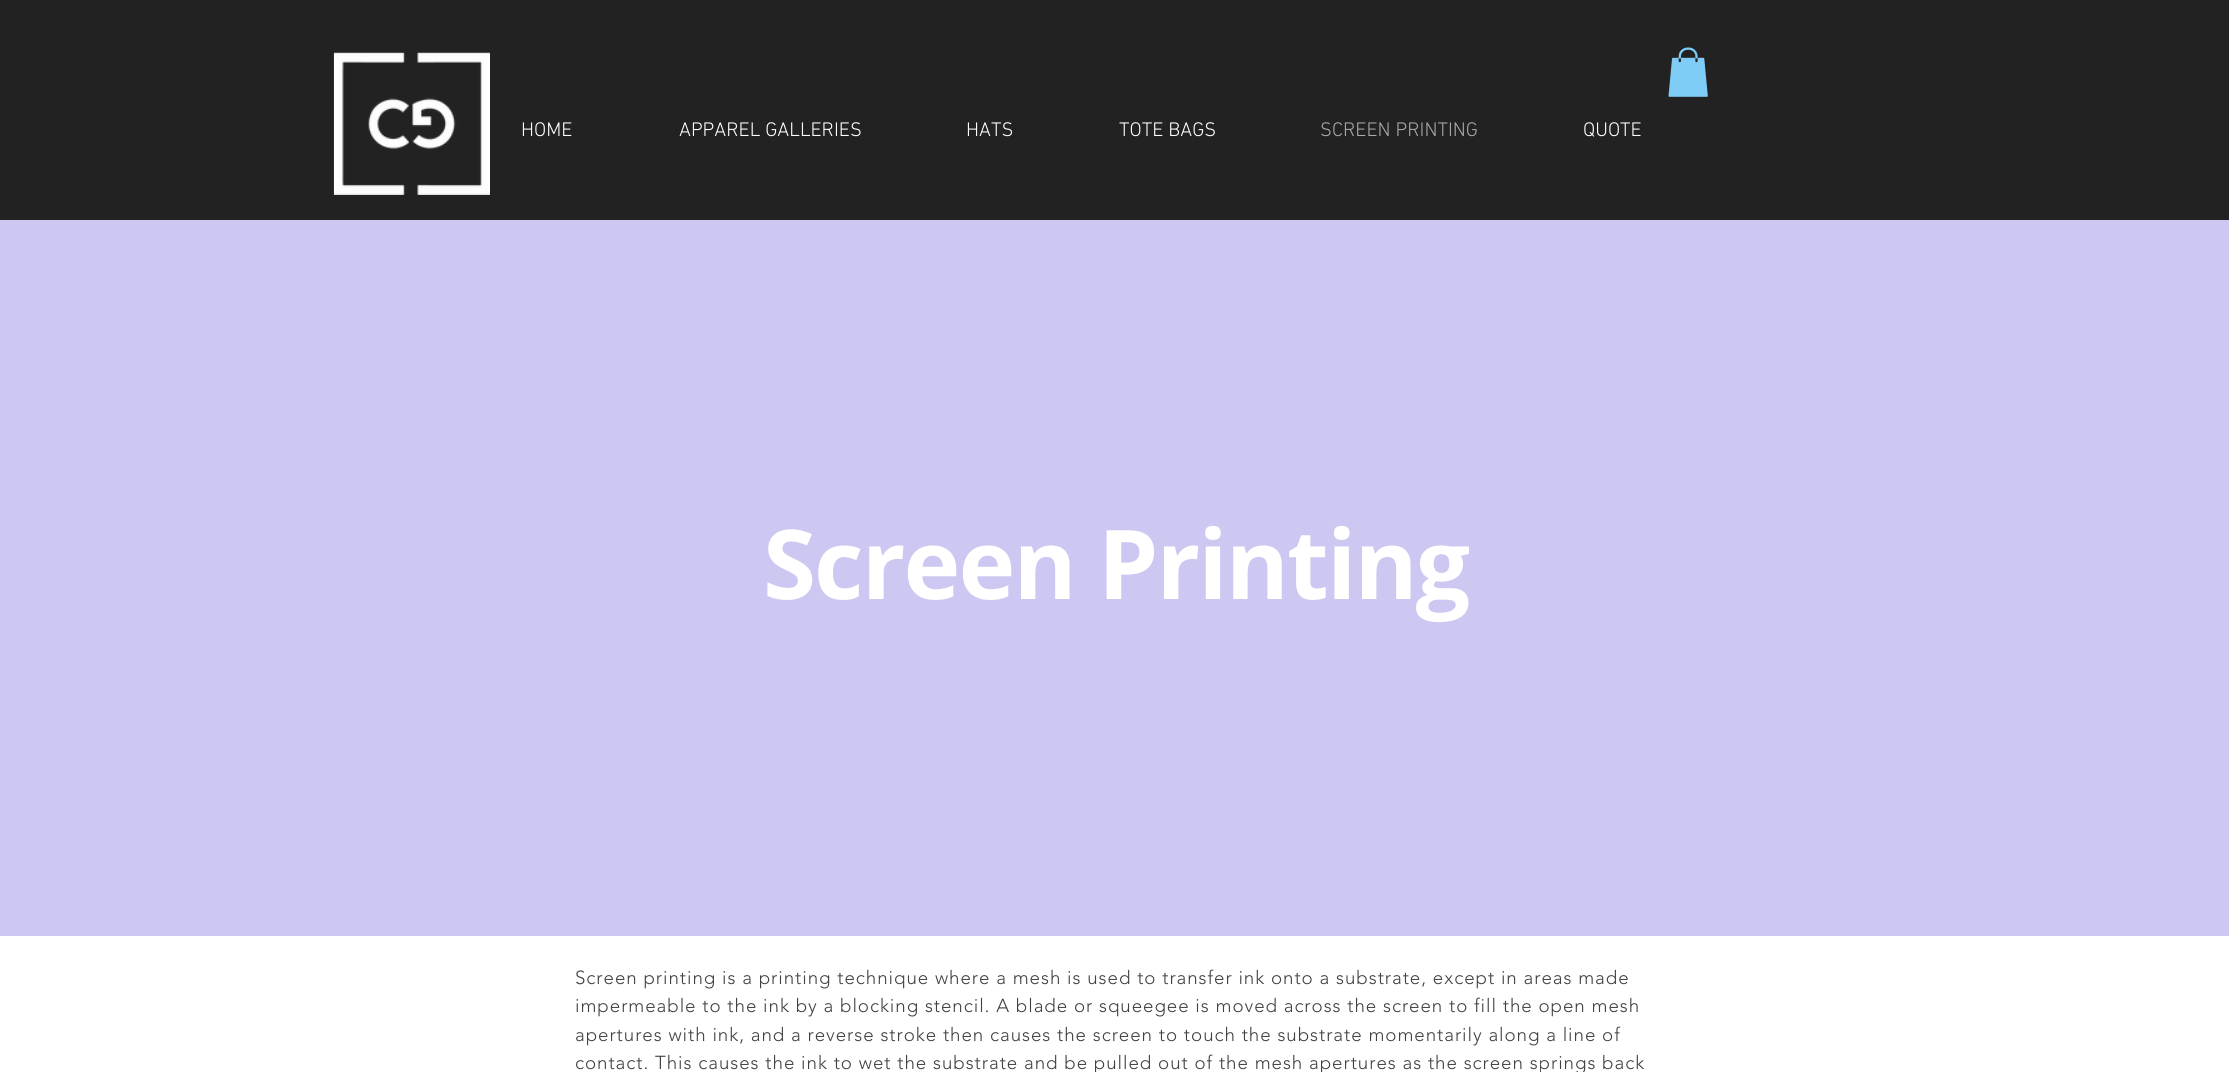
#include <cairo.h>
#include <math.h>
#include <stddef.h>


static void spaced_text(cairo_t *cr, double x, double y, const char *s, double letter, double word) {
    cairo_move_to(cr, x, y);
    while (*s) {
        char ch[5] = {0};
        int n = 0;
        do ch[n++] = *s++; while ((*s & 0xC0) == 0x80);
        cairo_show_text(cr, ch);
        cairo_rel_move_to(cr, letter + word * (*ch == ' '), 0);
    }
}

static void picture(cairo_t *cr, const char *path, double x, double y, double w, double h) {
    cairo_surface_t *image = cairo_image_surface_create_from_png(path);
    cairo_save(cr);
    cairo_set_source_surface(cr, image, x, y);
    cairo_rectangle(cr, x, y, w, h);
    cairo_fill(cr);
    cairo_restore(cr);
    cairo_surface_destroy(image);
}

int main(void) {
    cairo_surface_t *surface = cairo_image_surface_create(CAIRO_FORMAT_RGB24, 2229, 1072);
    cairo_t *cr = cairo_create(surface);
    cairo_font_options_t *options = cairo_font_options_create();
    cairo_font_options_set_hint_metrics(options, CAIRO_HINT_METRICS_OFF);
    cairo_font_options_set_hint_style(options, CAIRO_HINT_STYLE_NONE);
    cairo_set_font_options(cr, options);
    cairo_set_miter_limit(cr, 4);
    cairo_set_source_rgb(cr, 1, 1, 1);
    cairo_paint(cr);
    cairo_set_source_rgb(cr, 0.133, 0.133, 0.133);
    cairo_rectangle(cr, 0, 0, 2229, 220);
    cairo_fill(cr);
    picture(cr, "img1.png", 333, 52, 157, 143);
    cairo_select_font_face(cr, "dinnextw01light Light", CAIRO_FONT_SLANT_NORMAL, CAIRO_FONT_WEIGHT_NORMAL);
    cairo_set_font_size(cr, 20);
    cairo_set_source_rgb(cr, 1, 1, 1);
    cairo_move_to(cr, 521, 136);
    cairo_show_text(cr, "HOME");
    cairo_move_to(cr, 679, 136);
    cairo_show_text(cr, "APPAREL GALLERIES");
    cairo_move_to(cr, 966, 136);
    cairo_show_text(cr, "HATS");
    cairo_move_to(cr, 1119, 136);
    cairo_show_text(cr, "TOTE BAGS");
    cairo_set_source_rgb(cr, 0.659, 0.659, 0.655);
    cairo_move_to(cr, 1320, 136);
    cairo_show_text(cr, "SCREEN PRINTING");
    cairo_set_source_rgb(cr, 1, 1, 1);
    cairo_move_to(cr, 1583, 136);
    cairo_show_text(cr, "QUOTE");
    picture(cr, "img2.png", 1668, 47, 40, 50);
    cairo_set_source_rgb(cr, 0.8, 0.784, 0.945);
    cairo_rectangle(cr, 0, 220, 2229, 716);
    cairo_fill(cr);
    cairo_select_font_face(cr, "Open Sans", CAIRO_FONT_SLANT_NORMAL, CAIRO_FONT_WEIGHT_BOLD);
    cairo_set_font_size(cr, 96.25);
    cairo_set_source_rgb(cr, 1, 1, 1);
    spaced_text(cr, 763, 599, "Screen Printing", -1.9, 0);
    cairo_select_font_face(cr, "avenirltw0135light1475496 Light", CAIRO_FONT_SLANT_NORMAL, CAIRO_FONT_WEIGHT_NORMAL);
    cairo_set_font_size(cr, 18.75);
    cairo_set_source_rgb(cr, 0.255, 0.255, 0.255);
    spaced_text(cr, 575, 984, "Screen printing is a printing technique where a mesh is used to transfer ink onto a substrate, except in areas made", 0.94, 0);
    spaced_text(cr, 575, 1012, "impermeable to the ink by a blocking stencil. A blade or squeegee is moved across the screen to fill the open mesh", 0.94, 0);
    spaced_text(cr, 575, 1041, "apertures with ink, and a reverse stroke then causes the screen to touch the substrate momentarily along a line of", 0.94, 0);
    spaced_text(cr, 575, 1069, "contact. This causes the ink to wet the substrate and be pulled out of the mesh apertures as the screen springs back", 0.94, 0);
    cairo_surface_write_to_png(surface, "page.png");
    cairo_font_options_destroy(options);
    cairo_destroy(cr);
    cairo_surface_destroy(surface);
    return 0;
}
